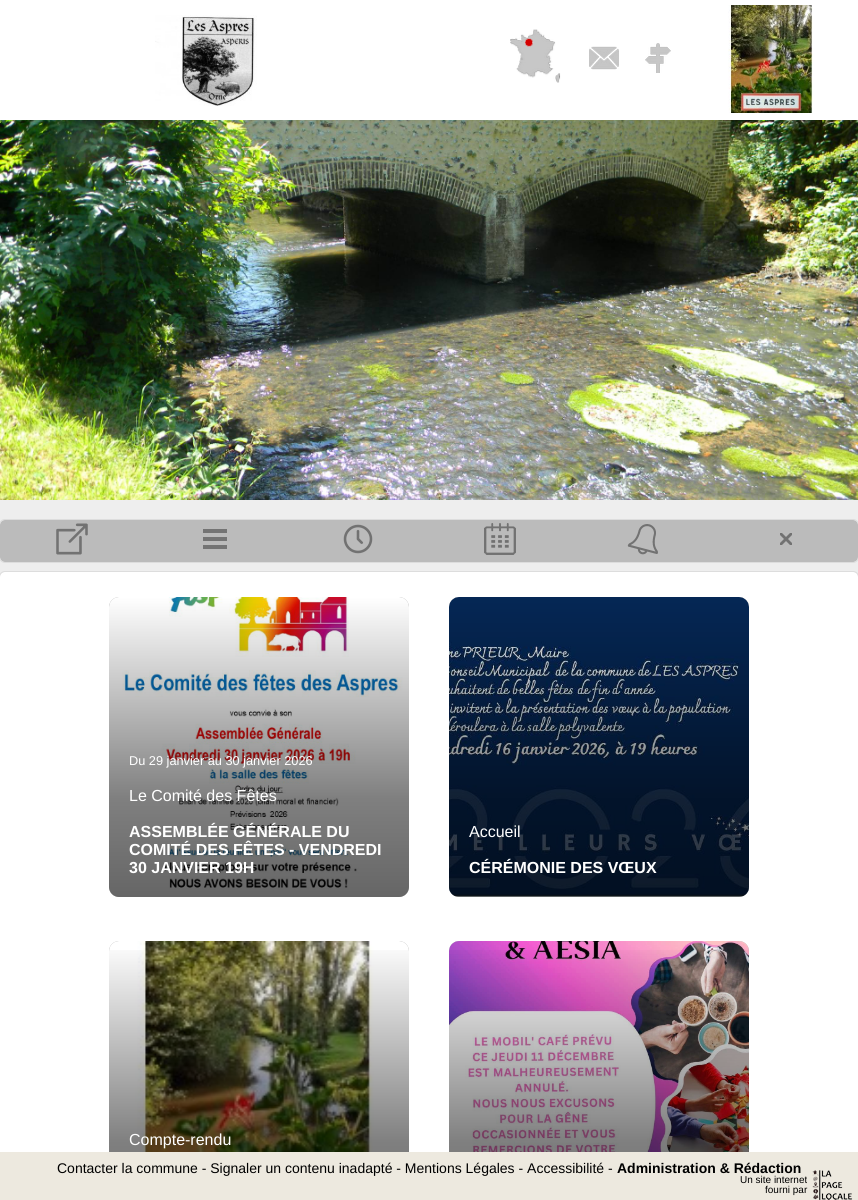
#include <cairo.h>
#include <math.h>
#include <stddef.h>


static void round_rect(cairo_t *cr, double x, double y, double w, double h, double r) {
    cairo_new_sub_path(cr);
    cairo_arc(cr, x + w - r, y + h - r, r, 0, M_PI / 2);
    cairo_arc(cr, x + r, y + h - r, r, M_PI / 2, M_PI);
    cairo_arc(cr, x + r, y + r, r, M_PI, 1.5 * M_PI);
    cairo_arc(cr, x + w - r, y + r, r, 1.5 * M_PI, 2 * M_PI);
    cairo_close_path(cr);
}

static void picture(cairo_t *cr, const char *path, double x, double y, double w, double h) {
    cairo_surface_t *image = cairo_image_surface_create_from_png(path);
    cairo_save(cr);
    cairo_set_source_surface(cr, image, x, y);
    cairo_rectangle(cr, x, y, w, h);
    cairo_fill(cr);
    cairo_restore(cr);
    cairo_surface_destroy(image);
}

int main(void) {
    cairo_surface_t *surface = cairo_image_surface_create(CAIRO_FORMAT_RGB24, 858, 1200);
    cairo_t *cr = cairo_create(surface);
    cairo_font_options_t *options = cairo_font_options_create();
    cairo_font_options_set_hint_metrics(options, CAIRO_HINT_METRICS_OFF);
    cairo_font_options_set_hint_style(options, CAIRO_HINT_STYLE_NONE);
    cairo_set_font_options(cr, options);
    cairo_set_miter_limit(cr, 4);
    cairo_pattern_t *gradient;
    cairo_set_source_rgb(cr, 0.933, 0.933, 0.933);
    cairo_paint(cr);
    cairo_set_source_rgb(cr, 1, 1, 1);
    cairo_rectangle(cr, 0, 0, 858, 120);
    cairo_fill(cr);
    picture(cr, "img1.png", 155, 15, 102, 91);
    picture(cr, "img2.png", 510, 29, 51, 54);
    picture(cr, "img3.png", 589, 46, 30, 24);
    picture(cr, "img4.png", 645, 43, 26, 30);
    picture(cr, "img5.png", 728, 5, 85, 108);
    picture(cr, "img6.png", 0, 120, 858, 380);
    cairo_set_source_rgb(cr, 0.733, 0.733, 0.733);
    round_rect(cr, 0, 520, 858, 42, 5);
    cairo_fill(cr);
    picture(cr, "img7.png", 56, 523, 32, 32);
    picture(cr, "img8.png", 203, 529, 24, 20);
    picture(cr, "img9.png", 343, 524, 30, 30);
    picture(cr, "img10.png", 484, 523, 32, 32);
    picture(cr, "img11.png", 627, 524, 31, 31);
    picture(cr, "img12.png", 780, 533, 12, 12);
    round_rect(cr, -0.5, 519.5, 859, 43, 5.5);
    cairo_set_source_rgb(cr, 0.867, 0.867, 0.867);
    cairo_set_line_width(cr, 1);
    cairo_stroke(cr);
    cairo_set_source_rgb(cr, 1, 1, 1);
    round_rect(cr, 0, 572, 858, 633, 5);
    cairo_fill(cr);
    round_rect(cr, -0.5, 571.5, 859, 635, 5.5);
    cairo_set_source_rgb(cr, 0.867, 0.867, 0.867);
    cairo_stroke(cr);
    cairo_set_source_rgb(cr, 0.733, 0.733, 0.733);
    round_rect(cr, 109, 597, 300, 300, 10);
    cairo_fill(cr);
    picture(cr, "img13.png", 109, 597, 300, 300);
    gradient = cairo_pattern_create_linear(259, 897, 259, 597);
    cairo_pattern_add_color_stop_rgba(gradient, 0, 0, 0, 0, 0.6);
    cairo_pattern_add_color_stop_rgba(gradient, 0.33, 0, 0, 0, 0.5);
    cairo_pattern_add_color_stop_rgba(gradient, 1, 0, 0, 0, 0);
    cairo_set_source(cr, gradient);
    cairo_pattern_destroy(gradient);
    round_rect(cr, 109, 597, 300, 300, 10);
    cairo_fill(cr);
    cairo_select_font_face(cr, "Liberation Sans", CAIRO_FONT_SLANT_NORMAL, CAIRO_FONT_WEIGHT_NORMAL);
    cairo_set_font_size(cr, 12.75);
    cairo_set_source_rgb(cr, 1, 1, 1);
    cairo_move_to(cr, 129, 765);
    cairo_show_text(cr, "Du 29 janvier au 30 janvier 2026");
    cairo_set_font_size(cr, 16);
    cairo_move_to(cr, 129, 801);
    cairo_show_text(cr, "Le Comité des Fêtes");
    cairo_select_font_face(cr, "Liberation Sans", CAIRO_FONT_SLANT_NORMAL, CAIRO_FONT_WEIGHT_BOLD);
    cairo_move_to(cr, 129, 837);
    cairo_show_text(cr, "ASSEMBLÉE GÉNÉRALE DU");
    cairo_move_to(cr, 129, 855);
    cairo_show_text(cr, "COMITÉ DES FÊTES - VENDREDI");
    cairo_move_to(cr, 129, 873);
    cairo_show_text(cr, "30 JANVIER 19H");
    cairo_set_source_rgb(cr, 0.733, 0.733, 0.733);
    round_rect(cr, 449, 597, 300, 300, 10);
    cairo_fill(cr);
    picture(cr, "img14.png", 449, 597, 300, 300);
    gradient = cairo_pattern_create_linear(599, 897, 599, 597);
    cairo_pattern_add_color_stop_rgba(gradient, 0, 0, 0, 0, 0.6);
    cairo_pattern_add_color_stop_rgba(gradient, 0.33, 0, 0, 0, 0.5);
    cairo_pattern_add_color_stop_rgba(gradient, 1, 0, 0, 0, 0);
    cairo_set_source(cr, gradient);
    cairo_pattern_destroy(gradient);
    round_rect(cr, 449, 597, 300, 300, 10);
    cairo_fill(cr);
    cairo_select_font_face(cr, "Liberation Sans", CAIRO_FONT_SLANT_NORMAL, CAIRO_FONT_WEIGHT_NORMAL);
    cairo_set_source_rgb(cr, 1, 1, 1);
    cairo_move_to(cr, 469, 837);
    cairo_show_text(cr, "Accueil");
    cairo_select_font_face(cr, "Liberation Sans", CAIRO_FONT_SLANT_NORMAL, CAIRO_FONT_WEIGHT_BOLD);
    cairo_move_to(cr, 469, 873);
    cairo_show_text(cr, "CÉRÉMONIE DES VŒUX");
    cairo_set_source_rgb(cr, 0.733, 0.733, 0.733);
    round_rect(cr, 109, 941, 300, 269, 10);
    cairo_fill(cr);
    picture(cr, "img15.png", 109, 941, 300, 211);
    gradient = cairo_pattern_create_linear(259, 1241, 259, 941);
    cairo_pattern_add_color_stop_rgba(gradient, 0, 0, 0, 0, 0.6);
    cairo_pattern_add_color_stop_rgba(gradient, 0.33, 0, 0, 0, 0.5);
    cairo_pattern_add_color_stop_rgba(gradient, 1, 0, 0, 0, 0);
    cairo_set_source(cr, gradient);
    cairo_pattern_destroy(gradient);
    cairo_rectangle(cr, 109, 950, 300, 202);
    cairo_fill(cr);
    cairo_select_font_face(cr, "Liberation Sans", CAIRO_FONT_SLANT_NORMAL, CAIRO_FONT_WEIGHT_NORMAL);
    cairo_set_source_rgb(cr, 1, 1, 1);
    cairo_move_to(cr, 129, 1145);
    cairo_show_text(cr, "Compte-rendu");
    cairo_set_source_rgb(cr, 0.733, 0.733, 0.733);
    round_rect(cr, 449, 941, 300, 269, 10);
    cairo_fill(cr);
    picture(cr, "img16.png", 449, 941, 300, 211);
    gradient = cairo_pattern_create_linear(599, 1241, 599, 941);
    cairo_pattern_add_color_stop_rgba(gradient, 0, 0, 0, 0, 0.6);
    cairo_pattern_add_color_stop_rgba(gradient, 0.33, 0, 0, 0, 0.5);
    cairo_pattern_add_color_stop_rgba(gradient, 1, 0, 0, 0, 0);
    cairo_set_source(cr, gradient);
    cairo_pattern_destroy(gradient);
    cairo_rectangle(cr, 449, 950, 300, 202);
    cairo_fill(cr);
    cairo_set_source_rgb(cr, 0.929, 0.914, 0.875);
    cairo_rectangle(cr, 0, 1152, 858, 48);
    cairo_fill(cr);
    cairo_set_font_size(cr, 14);
    cairo_set_source_rgb(cr, 0, 0, 0);
    cairo_move_to(cr, 57, 1173);
    cairo_show_text(cr, "Contacter la commune - Signaler un contenu inadapté - Mentions Légales - Accessibilité -");
    cairo_select_font_face(cr, "Liberation Sans", CAIRO_FONT_SLANT_NORMAL, CAIRO_FONT_WEIGHT_BOLD);
    cairo_move_to(cr, 617, 1173);
    cairo_show_text(cr, "Administration & Rédaction");
    cairo_select_font_face(cr, "Liberation Sans", CAIRO_FONT_SLANT_NORMAL, CAIRO_FONT_WEIGHT_NORMAL);
    cairo_set_font_size(cr, 10);
    cairo_move_to(cr, 740, 1183);
    cairo_show_text(cr, "Un site internet");
    cairo_move_to(cr, 765, 1193);
    cairo_show_text(cr, "fourni par");
    picture(cr, "img17.png", 812, 1170, 41, 30);
    cairo_surface_write_to_png(surface, "page.png");
    cairo_font_options_destroy(options);
    cairo_destroy(cr);
    cairo_surface_destroy(surface);
    return 0;
}
